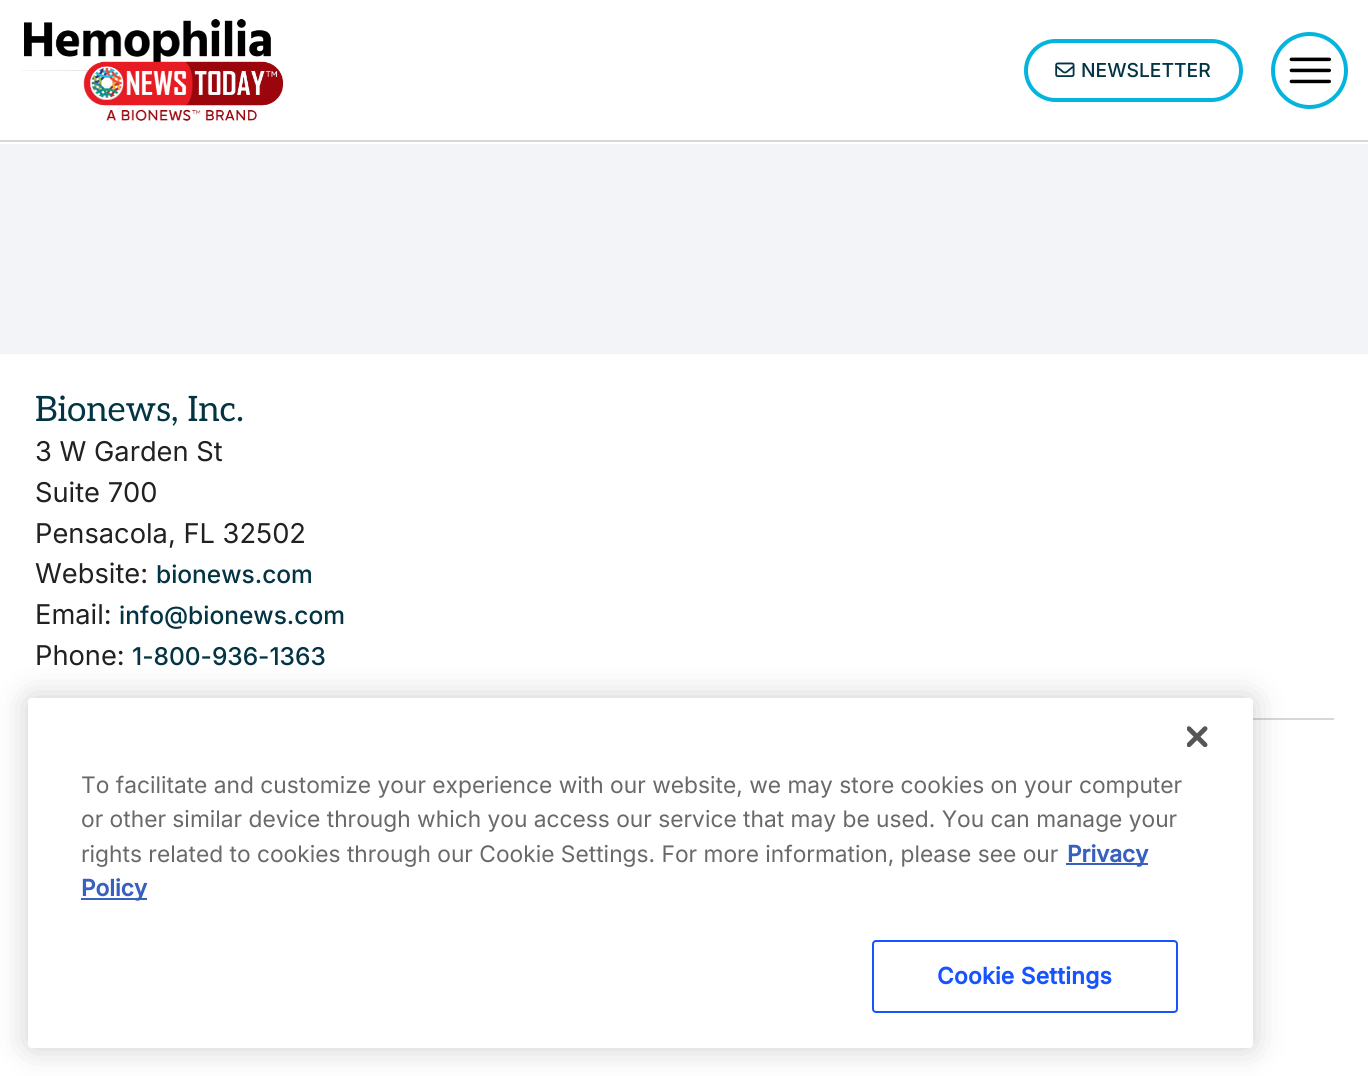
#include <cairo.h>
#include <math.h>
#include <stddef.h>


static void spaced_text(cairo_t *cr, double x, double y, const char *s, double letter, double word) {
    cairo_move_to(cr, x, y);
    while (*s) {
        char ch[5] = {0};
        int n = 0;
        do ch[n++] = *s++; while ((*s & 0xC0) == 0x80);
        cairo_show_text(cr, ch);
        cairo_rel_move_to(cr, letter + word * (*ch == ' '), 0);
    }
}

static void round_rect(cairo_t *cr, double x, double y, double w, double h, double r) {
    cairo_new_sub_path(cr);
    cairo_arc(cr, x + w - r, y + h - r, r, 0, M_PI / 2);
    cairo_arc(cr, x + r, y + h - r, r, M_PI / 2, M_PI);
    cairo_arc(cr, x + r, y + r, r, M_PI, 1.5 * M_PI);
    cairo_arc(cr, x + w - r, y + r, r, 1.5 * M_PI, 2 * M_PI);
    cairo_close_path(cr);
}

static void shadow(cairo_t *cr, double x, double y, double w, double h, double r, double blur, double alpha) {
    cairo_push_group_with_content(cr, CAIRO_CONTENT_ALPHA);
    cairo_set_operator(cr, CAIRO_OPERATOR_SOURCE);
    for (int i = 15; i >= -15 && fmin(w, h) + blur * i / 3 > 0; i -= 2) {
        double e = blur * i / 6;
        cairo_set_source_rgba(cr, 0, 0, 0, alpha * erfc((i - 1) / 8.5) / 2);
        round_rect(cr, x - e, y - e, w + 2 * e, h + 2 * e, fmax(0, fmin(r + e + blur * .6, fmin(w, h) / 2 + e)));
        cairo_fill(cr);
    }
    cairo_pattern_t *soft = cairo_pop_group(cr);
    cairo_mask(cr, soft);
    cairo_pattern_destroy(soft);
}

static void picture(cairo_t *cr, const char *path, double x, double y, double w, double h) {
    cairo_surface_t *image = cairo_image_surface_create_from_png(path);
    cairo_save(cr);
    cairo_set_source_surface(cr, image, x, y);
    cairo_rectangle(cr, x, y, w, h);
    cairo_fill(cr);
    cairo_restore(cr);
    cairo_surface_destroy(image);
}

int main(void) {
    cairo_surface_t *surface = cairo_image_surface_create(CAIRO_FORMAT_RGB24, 1368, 1076);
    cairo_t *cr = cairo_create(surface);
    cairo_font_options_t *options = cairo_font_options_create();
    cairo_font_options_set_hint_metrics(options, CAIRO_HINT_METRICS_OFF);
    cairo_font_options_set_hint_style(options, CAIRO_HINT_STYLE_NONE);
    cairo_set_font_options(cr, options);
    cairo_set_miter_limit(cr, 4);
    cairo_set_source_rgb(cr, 1, 1, 1);
    cairo_paint(cr);
    cairo_set_source_rgb(cr, 0.843, 0.843, 0.843);
    cairo_rectangle(cr, 0, 140, 1368, 2);
    cairo_fill(cr);
    picture(cr, "img1.png", 21, 19, 263, 102);
    round_rect(cr, 1026, 41, 215, 59, 29.5);
    cairo_set_source_rgb(cr, 0.02, 0.706, 0.867);
    cairo_set_line_width(cr, 4);
    cairo_stroke(cr);
    picture(cr, "img2.png", 1055, 62, 20, 15);
    cairo_select_font_face(cr, "Inter Medium", CAIRO_FONT_SLANT_NORMAL, CAIRO_FONT_WEIGHT_NORMAL);
    cairo_set_font_size(cr, 19.25);
    cairo_set_source_rgb(cr, 0.012, 0.204, 0.263);
    cairo_move_to(cr, 1081, 77);
    cairo_show_text(cr, "NEWSLETTER");
    picture(cr, "img3.png", 1289, 57, 42, 27);
    cairo_arc(cr, 1309.5, 70.5, 36.5, 0, 2 * M_PI);
    cairo_set_source_rgb(cr, 0.02, 0.706, 0.867);
    cairo_stroke(cr);
    cairo_set_source_rgb(cr, 0.953, 0.957, 0.965);
    cairo_rectangle(cr, 0, 144, 1368, 210);
    cairo_fill(cr);
    cairo_select_font_face(cr, "Aleo", CAIRO_FONT_SLANT_NORMAL, CAIRO_FONT_WEIGHT_NORMAL);
    cairo_set_font_size(cr, 35);
    cairo_set_source_rgb(cr, 0.012, 0.204, 0.263);
    cairo_move_to(cr, 35, 421);
    cairo_show_text(cr, "Bionews, Inc.");
    cairo_select_font_face(cr, "Inter", CAIRO_FONT_SLANT_NORMAL, CAIRO_FONT_WEIGHT_NORMAL);
    cairo_set_font_size(cr, 27.25);
    cairo_set_source_rgb(cr, 0.129, 0.129, 0.129);
    cairo_move_to(cr, 35, 461);
    cairo_show_text(cr, "3 W Garden St");
    cairo_move_to(cr, 35, 502);
    cairo_show_text(cr, "Suite 700");
    cairo_move_to(cr, 35, 543);
    cairo_show_text(cr, "Pensacola, FL 32502");
    cairo_move_to(cr, 35, 583);
    cairo_show_text(cr, "Website:");
    cairo_select_font_face(cr, "Inter Medium", CAIRO_FONT_SLANT_NORMAL, CAIRO_FONT_WEIGHT_NORMAL);
    cairo_set_font_size(cr, 24.5);
    cairo_set_source_rgb(cr, 0.012, 0.204, 0.263);
    cairo_move_to(cr, 156, 583);
    cairo_show_text(cr, "bionews.com");
    cairo_select_font_face(cr, "Inter", CAIRO_FONT_SLANT_NORMAL, CAIRO_FONT_WEIGHT_NORMAL);
    cairo_set_font_size(cr, 27.25);
    cairo_set_source_rgb(cr, 0.129, 0.129, 0.129);
    cairo_move_to(cr, 35, 624);
    cairo_show_text(cr, "Email:");
    cairo_select_font_face(cr, "Inter Medium", CAIRO_FONT_SLANT_NORMAL, CAIRO_FONT_WEIGHT_NORMAL);
    cairo_set_font_size(cr, 24.5);
    cairo_set_source_rgb(cr, 0.012, 0.204, 0.263);
    cairo_move_to(cr, 119, 624);
    cairo_show_text(cr, "info@bionews.com");
    cairo_select_font_face(cr, "Inter", CAIRO_FONT_SLANT_NORMAL, CAIRO_FONT_WEIGHT_NORMAL);
    cairo_set_font_size(cr, 27.25);
    cairo_set_source_rgb(cr, 0.129, 0.129, 0.129);
    cairo_move_to(cr, 35, 665);
    cairo_show_text(cr, "Phone:");
    cairo_select_font_face(cr, "Inter Medium", CAIRO_FONT_SLANT_NORMAL, CAIRO_FONT_WEIGHT_NORMAL);
    cairo_set_font_size(cr, 24.5);
    cairo_set_source_rgb(cr, 0.012, 0.204, 0.263);
    cairo_move_to(cr, 132, 665);
    cairo_show_text(cr, "1-800-936-1363");
    cairo_set_source_rgb(cr, 0.843, 0.843, 0.843);
    cairo_rectangle(cr, 1253, 718, 81, 2);
    cairo_fill(cr);
    cairo_set_source_rgb(cr, 0, 0, 0);
    shadow(cr, 28, 698, 1225, 350, 4, 16, 0.2);
    cairo_set_source_rgb(cr, 1, 1, 1);
    round_rect(cr, 28, 698, 1225, 350, 4);
    cairo_fill(cr);
    picture(cr, "img4.png", 1187, 726, 21, 21);
    cairo_select_font_face(cr, "Inter", CAIRO_FONT_SLANT_NORMAL, CAIRO_FONT_WEIGHT_NORMAL);
    cairo_set_font_size(cr, 22.75);
    cairo_set_source_rgb(cr, 0.412, 0.412, 0.412);
    cairo_move_to(cr, 81, 793);
    cairo_show_text(cr, "To facilitate and customize your experience with our website, we may store cookies on your computer");
    cairo_move_to(cr, 81, 827);
    cairo_show_text(cr, "or other similar device through which you access our service that may be used. You can manage your");
    cairo_move_to(cr, 81, 862);
    cairo_show_text(cr, "rights related to cookies through our Cookie Settings. For more information, please see our");
    cairo_set_source_rgb(cr, 0.22, 0.376, 0.745);
    cairo_rectangle(cr, 1066, 863, 82, 2);
    cairo_fill(cr);
    cairo_select_font_face(cr, "Inter", CAIRO_FONT_SLANT_NORMAL, CAIRO_FONT_WEIGHT_BOLD);
    cairo_move_to(cr, 1067, 862);
    cairo_show_text(cr, "Privacy");
    cairo_rectangle(cr, 81, 898, 66, 2);
    cairo_fill(cr);
    cairo_move_to(cr, 81, 896);
    cairo_show_text(cr, "Policy");
    round_rect(cr, 873, 941, 304, 71, 3);
    cairo_set_source_rgb(cr, 0.09, 0.329, 1);
    cairo_set_line_width(cr, 2);
    cairo_stroke(cr);
    spaced_text(cr, 937, 984, "Cookie Settings", 0.25, 0);
    cairo_surface_write_to_png(surface, "page.png");
    cairo_font_options_destroy(options);
    cairo_destroy(cr);
    cairo_surface_destroy(surface);
    return 0;
}
